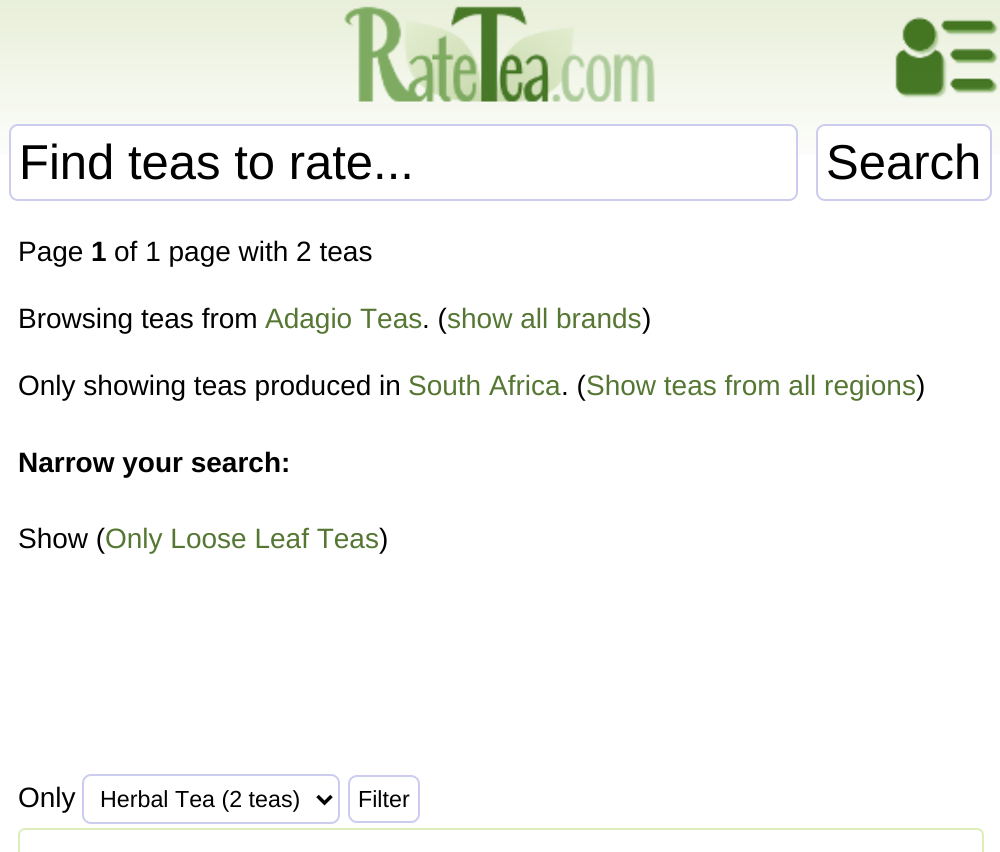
#include <cairo.h>
#include <math.h>
#include <stddef.h>


static void round_rect(cairo_t *cr, double x, double y, double w, double h, double r) {
    cairo_new_sub_path(cr);
    cairo_arc(cr, x + w - r, y + h - r, r, 0, M_PI / 2);
    cairo_arc(cr, x + r, y + h - r, r, M_PI / 2, M_PI);
    cairo_arc(cr, x + r, y + r, r, M_PI, 1.5 * M_PI);
    cairo_arc(cr, x + w - r, y + r, r, 1.5 * M_PI, 2 * M_PI);
    cairo_close_path(cr);
}

static void picture(cairo_t *cr, const char *path, double x, double y, double w, double h) {
    cairo_surface_t *image = cairo_image_surface_create_from_png(path);
    cairo_save(cr);
    cairo_set_source_surface(cr, image, x, y);
    cairo_rectangle(cr, x, y, w, h);
    cairo_fill(cr);
    cairo_restore(cr);
    cairo_surface_destroy(image);
}

int main(void) {
    cairo_surface_t *surface = cairo_image_surface_create(CAIRO_FORMAT_RGB24, 1000, 852);
    cairo_t *cr = cairo_create(surface);
    cairo_font_options_t *options = cairo_font_options_create();
    cairo_font_options_set_hint_metrics(options, CAIRO_HINT_METRICS_OFF);
    cairo_font_options_set_hint_style(options, CAIRO_HINT_STYLE_NONE);
    cairo_set_font_options(cr, options);
    cairo_set_miter_limit(cr, 4);
    cairo_set_source_rgb(cr, 1, 1, 1);
    cairo_paint(cr);
    picture(cr, "img1.png", 0, 0, 1000, 155);
    picture(cr, "img2.png", 344, 6, 311, 96);
    picture(cr, "img3.png", 895, 17, 103, 82);
    cairo_set_source_rgb(cr, 1, 1, 1);
    round_rect(cr, 10, 125, 787, 75, 8);
    cairo_fill_preserve(cr);
    cairo_set_source_rgb(cr, 0.8, 0.8, 0.933);
    cairo_stroke(cr);
    cairo_select_font_face(cr, "Liberation Sans", CAIRO_FONT_SLANT_NORMAL, CAIRO_FONT_WEIGHT_NORMAL);
    cairo_set_font_size(cr, 49);
    cairo_set_source_rgb(cr, 0, 0, 0);
    cairo_move_to(cr, 19, 179);
    cairo_show_text(cr, "Find teas to rate...");
    cairo_set_source_rgb(cr, 1, 1, 1);
    round_rect(cr, 817, 125, 174, 75, 8);
    cairo_fill_preserve(cr);
    cairo_set_source_rgb(cr, 0.8, 0.8, 0.933);
    cairo_stroke(cr);
    cairo_set_source_rgb(cr, 0, 0, 0);
    cairo_move_to(cr, 826, 179);
    cairo_show_text(cr, "Search");
    cairo_set_font_size(cr, 28);
    cairo_move_to(cr, 18, 261);
    cairo_show_text(cr, "Page");
    cairo_select_font_face(cr, "Liberation Sans", CAIRO_FONT_SLANT_NORMAL, CAIRO_FONT_WEIGHT_BOLD);
    cairo_move_to(cr, 91, 261);
    cairo_show_text(cr, "1");
    cairo_select_font_face(cr, "Liberation Sans", CAIRO_FONT_SLANT_NORMAL, CAIRO_FONT_WEIGHT_NORMAL);
    cairo_move_to(cr, 114, 261);
    cairo_show_text(cr, "of 1 page with 2 teas");
    cairo_move_to(cr, 18, 328);
    cairo_show_text(cr, "Browsing teas from");
    cairo_set_source_rgb(cr, 0.333, 0.467, 0.2);
    cairo_move_to(cr, 265, 328);
    cairo_show_text(cr, "Adagio Teas");
    cairo_set_source_rgb(cr, 0, 0, 0);
    cairo_move_to(cr, 422, 328);
    cairo_show_text(cr, ". (");
    cairo_set_source_rgb(cr, 0.333, 0.467, 0.2);
    cairo_move_to(cr, 447, 328);
    cairo_show_text(cr, "show all brands");
    cairo_set_source_rgb(cr, 0, 0, 0);
    cairo_move_to(cr, 642, 328);
    cairo_show_text(cr, ")");
    cairo_move_to(cr, 18, 395);
    cairo_show_text(cr, "Only showing teas produced in");
    cairo_set_source_rgb(cr, 0.333, 0.467, 0.2);
    cairo_move_to(cr, 408, 395);
    cairo_show_text(cr, "South Africa");
    cairo_set_source_rgb(cr, 0, 0, 0);
    cairo_move_to(cr, 561, 395);
    cairo_show_text(cr, ". (");
    cairo_set_source_rgb(cr, 0.333, 0.467, 0.2);
    cairo_move_to(cr, 586, 395);
    cairo_show_text(cr, "Show teas from all regions");
    cairo_set_source_rgb(cr, 0, 0, 0);
    cairo_move_to(cr, 916, 395);
    cairo_show_text(cr, ")");
    cairo_select_font_face(cr, "Liberation Sans", CAIRO_FONT_SLANT_NORMAL, CAIRO_FONT_WEIGHT_BOLD);
    cairo_move_to(cr, 18, 472);
    cairo_show_text(cr, "Narrow your search:");
    cairo_select_font_face(cr, "Liberation Sans", CAIRO_FONT_SLANT_NORMAL, CAIRO_FONT_WEIGHT_NORMAL);
    cairo_move_to(cr, 18, 548);
    cairo_show_text(cr, "Show (");
    cairo_set_source_rgb(cr, 0.333, 0.467, 0.2);
    cairo_move_to(cr, 105, 548);
    cairo_show_text(cr, "Only Loose Leaf Teas");
    cairo_set_source_rgb(cr, 0, 0, 0);
    cairo_move_to(cr, 379, 548);
    cairo_show_text(cr, ")");
    cairo_move_to(cr, 18, 807);
    cairo_show_text(cr, "Only");
    round_rect(cr, 83, 775, 256, 48, 8);
    cairo_set_source_rgb(cr, 0.8, 0.8, 0.933);
    cairo_stroke(cr);
    cairo_new_path(cr);
    cairo_move_to(cr, 317.5, 796);
    cairo_line_to(cr, 324.5, 803);
    cairo_line_to(cr, 331.5, 796);
    cairo_set_source_rgb(cr, 0, 0, 0);
    cairo_set_line_width(cr, 3.5);
    cairo_stroke(cr);
    cairo_set_font_size(cr, 23.25);
    cairo_move_to(cr, 100, 807);
    cairo_show_text(cr, "Herbal Tea (2 teas)");
    round_rect(cr, 349, 776, 70, 46, 8);
    cairo_set_source_rgb(cr, 0.8, 0.8, 0.933);
    cairo_set_line_width(cr, 2);
    cairo_stroke(cr);
    cairo_set_source_rgb(cr, 0, 0, 0);
    cairo_move_to(cr, 358, 807);
    cairo_show_text(cr, "Filter");
    round_rect(cr, 19, 829, 964, 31, 6);
    cairo_set_source_rgb(cr, 0.867, 0.933, 0.733);
    cairo_stroke(cr);
    cairo_surface_write_to_png(surface, "page.png");
    cairo_font_options_destroy(options);
    cairo_destroy(cr);
    cairo_surface_destroy(surface);
    return 0;
}
